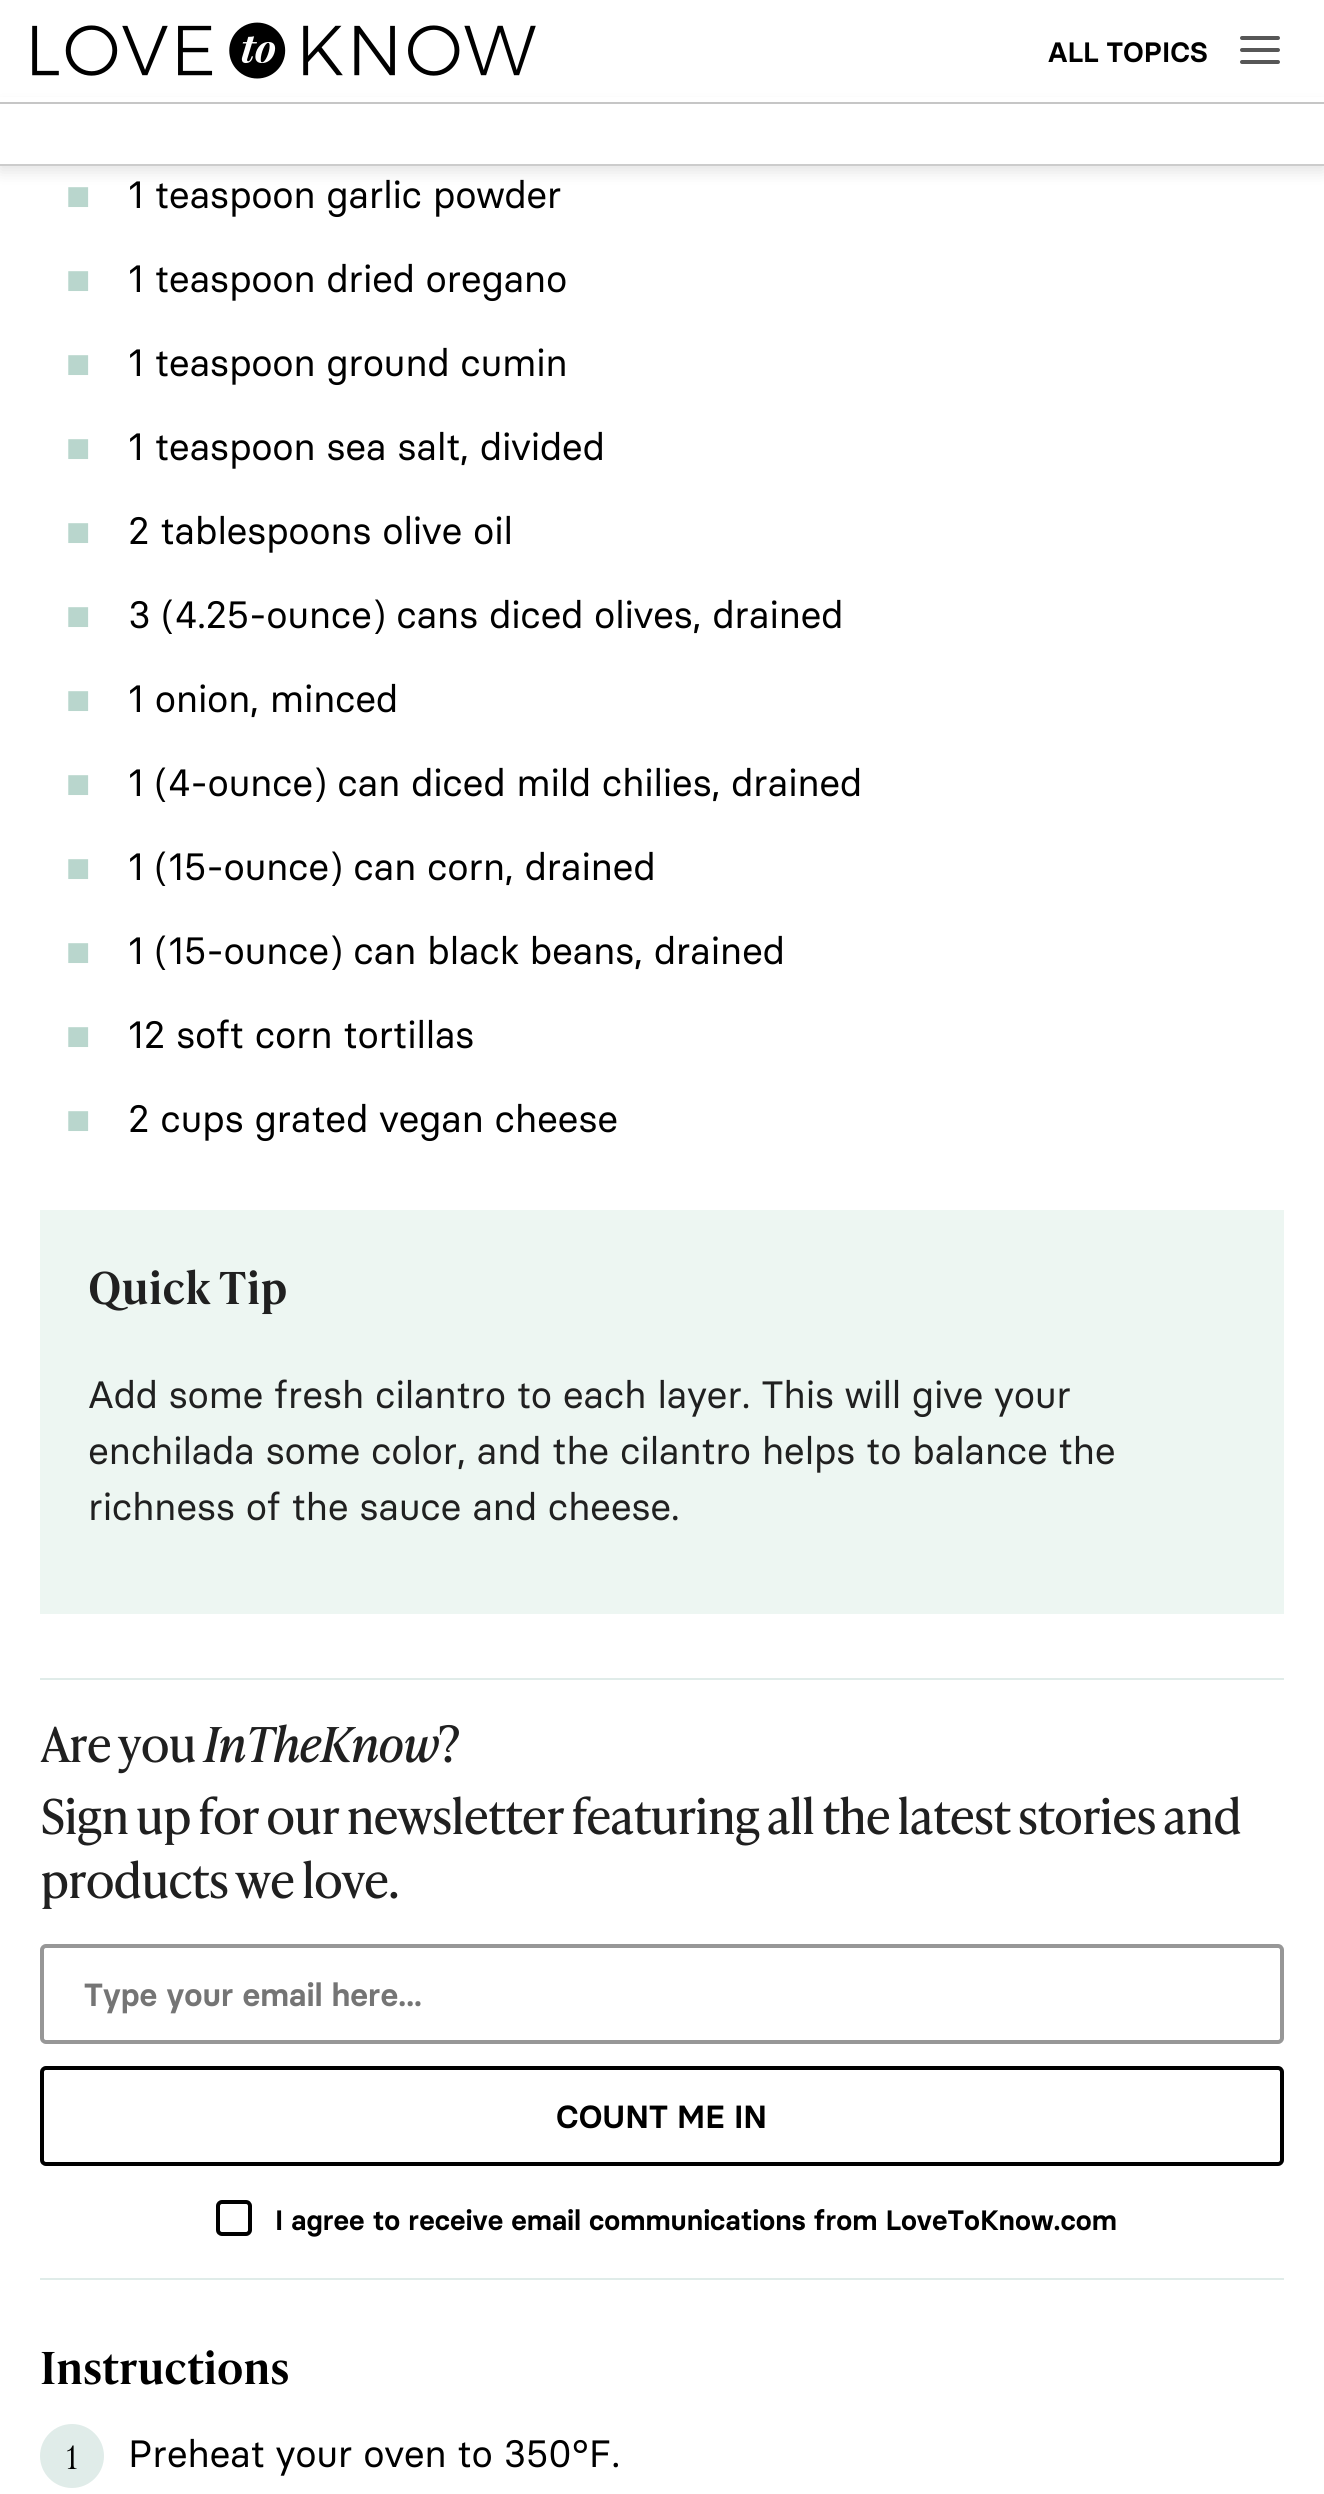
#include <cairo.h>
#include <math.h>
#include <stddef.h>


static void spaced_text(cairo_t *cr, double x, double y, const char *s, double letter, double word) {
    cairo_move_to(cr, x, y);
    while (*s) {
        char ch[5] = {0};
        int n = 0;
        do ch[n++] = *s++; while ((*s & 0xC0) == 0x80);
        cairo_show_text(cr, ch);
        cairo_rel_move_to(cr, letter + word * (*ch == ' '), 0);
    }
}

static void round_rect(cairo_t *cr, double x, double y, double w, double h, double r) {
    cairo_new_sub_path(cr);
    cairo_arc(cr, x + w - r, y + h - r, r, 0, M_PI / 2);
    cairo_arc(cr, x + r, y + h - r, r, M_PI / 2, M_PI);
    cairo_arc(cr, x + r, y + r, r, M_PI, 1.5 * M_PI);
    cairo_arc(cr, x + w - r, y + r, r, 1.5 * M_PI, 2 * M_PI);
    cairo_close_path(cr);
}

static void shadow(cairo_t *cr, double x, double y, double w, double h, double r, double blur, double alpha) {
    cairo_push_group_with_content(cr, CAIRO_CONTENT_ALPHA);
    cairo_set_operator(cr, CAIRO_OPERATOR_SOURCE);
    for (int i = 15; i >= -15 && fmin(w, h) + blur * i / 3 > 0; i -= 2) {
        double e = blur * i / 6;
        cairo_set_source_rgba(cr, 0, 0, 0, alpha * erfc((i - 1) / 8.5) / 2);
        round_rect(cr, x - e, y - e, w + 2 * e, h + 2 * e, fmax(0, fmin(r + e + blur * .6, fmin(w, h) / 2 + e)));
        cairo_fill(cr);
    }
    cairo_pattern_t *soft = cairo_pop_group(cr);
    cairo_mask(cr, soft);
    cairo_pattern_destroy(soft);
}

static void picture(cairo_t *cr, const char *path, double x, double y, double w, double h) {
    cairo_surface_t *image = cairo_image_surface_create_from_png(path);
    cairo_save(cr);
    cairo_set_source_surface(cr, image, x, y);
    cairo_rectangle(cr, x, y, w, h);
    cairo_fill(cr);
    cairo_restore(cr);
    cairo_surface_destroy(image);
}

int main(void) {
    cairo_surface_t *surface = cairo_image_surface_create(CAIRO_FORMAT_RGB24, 1324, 2494);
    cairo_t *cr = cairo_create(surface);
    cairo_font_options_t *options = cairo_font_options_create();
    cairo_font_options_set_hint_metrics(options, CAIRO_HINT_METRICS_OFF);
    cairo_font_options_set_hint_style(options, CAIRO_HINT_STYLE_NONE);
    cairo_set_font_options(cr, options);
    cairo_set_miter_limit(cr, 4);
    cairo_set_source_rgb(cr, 1, 1, 1);
    cairo_paint(cr);
    cairo_set_source_rgb(cr, 0, 0, 0);
    shadow(cr, 0, 108, 1324, 62, 0, 8, 0.13);
    cairo_set_source_rgb(cr, 1, 1, 1);
    cairo_rectangle(cr, 0, 97, 1324, 5);
    cairo_fill(cr);
    cairo_set_source_rgb(cr, 0.776, 0.776, 0.776);
    cairo_rectangle(cr, 0, 102, 1324, 2);
    cairo_fill(cr);
    picture(cr, "img1.png", 32, 22, 504, 57);
    cairo_select_font_face(cr, "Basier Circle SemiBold", CAIRO_FONT_SLANT_NORMAL, CAIRO_FONT_WEIGHT_NORMAL);
    cairo_set_font_size(cr, 28);
    cairo_set_source_rgb(cr, 0, 0, 0);
    cairo_move_to(cr, 1048, 62);
    cairo_show_text(cr, "ALL TOPICS");
    picture(cr, "img2.png", 1240, 36, 40, 28);
    cairo_set_source_rgb(cr, 1, 1, 1);
    cairo_rectangle(cr, 0, 104, 1324, 60);
    cairo_fill(cr);
    cairo_set_source_rgb(cr, 0.8, 0.8, 0.8);
    cairo_rectangle(cr, 0, 164, 1324, 2);
    cairo_fill(cr);
    cairo_select_font_face(cr, "Liberation Serif", CAIRO_FONT_SLANT_NORMAL, CAIRO_FONT_WEIGHT_NORMAL);
    cairo_set_font_size(cr, 80);
    cairo_set_source_rgb(cr, 0.725, 0.839, 0.804);
    spaced_text(cr, 64, 222, "▪", -0.4, 0);
    cairo_select_font_face(cr, "Basier Circle", CAIRO_FONT_SLANT_NORMAL, CAIRO_FONT_WEIGHT_NORMAL);
    cairo_set_font_size(cr, 38);
    cairo_set_source_rgb(cr, 0, 0, 0);
    spaced_text(cr, 128, 208, "1 teaspoon garlic powder", -0.4, 0);
    cairo_select_font_face(cr, "Liberation Serif", CAIRO_FONT_SLANT_NORMAL, CAIRO_FONT_WEIGHT_NORMAL);
    cairo_set_font_size(cr, 80);
    cairo_set_source_rgb(cr, 0.725, 0.839, 0.804);
    spaced_text(cr, 64, 306, "▪", -0.4, 0);
    cairo_select_font_face(cr, "Basier Circle", CAIRO_FONT_SLANT_NORMAL, CAIRO_FONT_WEIGHT_NORMAL);
    cairo_set_font_size(cr, 38);
    cairo_set_source_rgb(cr, 0, 0, 0);
    spaced_text(cr, 128, 292, "1 teaspoon dried oregano", -0.4, 0);
    cairo_select_font_face(cr, "Liberation Serif", CAIRO_FONT_SLANT_NORMAL, CAIRO_FONT_WEIGHT_NORMAL);
    cairo_set_font_size(cr, 80);
    cairo_set_source_rgb(cr, 0.725, 0.839, 0.804);
    spaced_text(cr, 64, 390, "▪", -0.4, 0);
    cairo_select_font_face(cr, "Basier Circle", CAIRO_FONT_SLANT_NORMAL, CAIRO_FONT_WEIGHT_NORMAL);
    cairo_set_font_size(cr, 38);
    cairo_set_source_rgb(cr, 0, 0, 0);
    spaced_text(cr, 128, 376, "1 teaspoon ground cumin", -0.4, 0);
    cairo_select_font_face(cr, "Liberation Serif", CAIRO_FONT_SLANT_NORMAL, CAIRO_FONT_WEIGHT_NORMAL);
    cairo_set_font_size(cr, 80);
    cairo_set_source_rgb(cr, 0.725, 0.839, 0.804);
    spaced_text(cr, 64, 474, "▪", -0.4, 0);
    cairo_select_font_face(cr, "Basier Circle", CAIRO_FONT_SLANT_NORMAL, CAIRO_FONT_WEIGHT_NORMAL);
    cairo_set_font_size(cr, 38);
    cairo_set_source_rgb(cr, 0, 0, 0);
    spaced_text(cr, 128, 460, "1 teaspoon sea salt, divided", -0.4, 0);
    cairo_select_font_face(cr, "Liberation Serif", CAIRO_FONT_SLANT_NORMAL, CAIRO_FONT_WEIGHT_NORMAL);
    cairo_set_font_size(cr, 80);
    cairo_set_source_rgb(cr, 0.725, 0.839, 0.804);
    spaced_text(cr, 64, 558, "▪", -0.4, 0);
    cairo_select_font_face(cr, "Basier Circle", CAIRO_FONT_SLANT_NORMAL, CAIRO_FONT_WEIGHT_NORMAL);
    cairo_set_font_size(cr, 38);
    cairo_set_source_rgb(cr, 0, 0, 0);
    spaced_text(cr, 128, 544, "2 tablespoons olive oil", -0.4, 0);
    cairo_select_font_face(cr, "Liberation Serif", CAIRO_FONT_SLANT_NORMAL, CAIRO_FONT_WEIGHT_NORMAL);
    cairo_set_font_size(cr, 80);
    cairo_set_source_rgb(cr, 0.725, 0.839, 0.804);
    spaced_text(cr, 64, 642, "▪", -0.4, 0);
    cairo_select_font_face(cr, "Basier Circle", CAIRO_FONT_SLANT_NORMAL, CAIRO_FONT_WEIGHT_NORMAL);
    cairo_set_font_size(cr, 38);
    cairo_set_source_rgb(cr, 0, 0, 0);
    spaced_text(cr, 128, 628, "3 (4.25-ounce) cans diced olives, drained", -0.4, 0);
    cairo_select_font_face(cr, "Liberation Serif", CAIRO_FONT_SLANT_NORMAL, CAIRO_FONT_WEIGHT_NORMAL);
    cairo_set_font_size(cr, 80);
    cairo_set_source_rgb(cr, 0.725, 0.839, 0.804);
    spaced_text(cr, 64, 726, "▪", -0.4, 0);
    cairo_select_font_face(cr, "Basier Circle", CAIRO_FONT_SLANT_NORMAL, CAIRO_FONT_WEIGHT_NORMAL);
    cairo_set_font_size(cr, 38);
    cairo_set_source_rgb(cr, 0, 0, 0);
    spaced_text(cr, 128, 712, "1 onion, minced", -0.4, 0);
    cairo_select_font_face(cr, "Liberation Serif", CAIRO_FONT_SLANT_NORMAL, CAIRO_FONT_WEIGHT_NORMAL);
    cairo_set_font_size(cr, 80);
    cairo_set_source_rgb(cr, 0.725, 0.839, 0.804);
    spaced_text(cr, 64, 810, "▪", -0.4, 0);
    cairo_select_font_face(cr, "Basier Circle", CAIRO_FONT_SLANT_NORMAL, CAIRO_FONT_WEIGHT_NORMAL);
    cairo_set_font_size(cr, 38);
    cairo_set_source_rgb(cr, 0, 0, 0);
    spaced_text(cr, 128, 796, "1 (4-ounce) can diced mild chilies, drained", -0.4, 0);
    cairo_select_font_face(cr, "Liberation Serif", CAIRO_FONT_SLANT_NORMAL, CAIRO_FONT_WEIGHT_NORMAL);
    cairo_set_font_size(cr, 80);
    cairo_set_source_rgb(cr, 0.725, 0.839, 0.804);
    spaced_text(cr, 64, 894, "▪", -0.4, 0);
    cairo_select_font_face(cr, "Basier Circle", CAIRO_FONT_SLANT_NORMAL, CAIRO_FONT_WEIGHT_NORMAL);
    cairo_set_font_size(cr, 38);
    cairo_set_source_rgb(cr, 0, 0, 0);
    spaced_text(cr, 128, 880, "1 (15-ounce) can corn, drained", -0.4, 0);
    cairo_select_font_face(cr, "Liberation Serif", CAIRO_FONT_SLANT_NORMAL, CAIRO_FONT_WEIGHT_NORMAL);
    cairo_set_font_size(cr, 80);
    cairo_set_source_rgb(cr, 0.725, 0.839, 0.804);
    spaced_text(cr, 64, 978, "▪", -0.4, 0);
    cairo_select_font_face(cr, "Basier Circle", CAIRO_FONT_SLANT_NORMAL, CAIRO_FONT_WEIGHT_NORMAL);
    cairo_set_font_size(cr, 38);
    cairo_set_source_rgb(cr, 0, 0, 0);
    spaced_text(cr, 128, 964, "1 (15-ounce) can black beans, drained", -0.4, 0);
    cairo_select_font_face(cr, "Liberation Serif", CAIRO_FONT_SLANT_NORMAL, CAIRO_FONT_WEIGHT_NORMAL);
    cairo_set_font_size(cr, 80);
    cairo_set_source_rgb(cr, 0.725, 0.839, 0.804);
    spaced_text(cr, 64, 1062, "▪", -0.4, 0);
    cairo_select_font_face(cr, "Basier Circle", CAIRO_FONT_SLANT_NORMAL, CAIRO_FONT_WEIGHT_NORMAL);
    cairo_set_font_size(cr, 38);
    cairo_set_source_rgb(cr, 0, 0, 0);
    spaced_text(cr, 128, 1048, "12 soft corn tortillas", -0.4, 0);
    cairo_select_font_face(cr, "Liberation Serif", CAIRO_FONT_SLANT_NORMAL, CAIRO_FONT_WEIGHT_NORMAL);
    cairo_set_font_size(cr, 80);
    cairo_set_source_rgb(cr, 0.725, 0.839, 0.804);
    spaced_text(cr, 64, 1146, "▪", -0.4, 0);
    cairo_select_font_face(cr, "Basier Circle", CAIRO_FONT_SLANT_NORMAL, CAIRO_FONT_WEIGHT_NORMAL);
    cairo_set_font_size(cr, 38);
    cairo_set_source_rgb(cr, 0, 0, 0);
    spaced_text(cr, 128, 1132, "2 cups grated vegan cheese", -0.4, 0);
    cairo_set_source_rgb(cr, 0.929, 0.961, 0.949);
    cairo_rectangle(cr, 40, 1210, 1244, 404);
    cairo_fill(cr);
    cairo_select_font_face(cr, "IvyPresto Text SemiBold", CAIRO_FONT_SLANT_NORMAL, CAIRO_FONT_WEIGHT_NORMAL);
    cairo_set_font_size(cr, 44);
    cairo_set_source_rgb(cr, 0.125, 0.125, 0.125);
    cairo_move_to(cr, 88, 1304);
    cairo_show_text(cr, "Quick Tip");
    cairo_select_font_face(cr, "Basier Circle", CAIRO_FONT_SLANT_NORMAL, CAIRO_FONT_WEIGHT_NORMAL);
    cairo_set_font_size(cr, 38);
    spaced_text(cr, 88, 1408, "Add some fresh cilantro to each layer. This will give your", -0.4, 0);
    spaced_text(cr, 88, 1464, "enchilada some color, and the cilantro helps to balance the", -0.4, 0);
    spaced_text(cr, 88, 1520, "richness of the sauce and cheese.", -0.4, 0);
    cairo_set_source_rgb(cr, 0.878, 0.922, 0.914);
    cairo_rectangle(cr, 40, 1678, 1244, 2);
    cairo_fill(cr);
    cairo_rectangle(cr, 40, 2278, 1244, 2);
    cairo_fill(cr);
    cairo_select_font_face(cr, "IvyPresto Text", CAIRO_FONT_SLANT_NORMAL, CAIRO_FONT_WEIGHT_NORMAL);
    cairo_set_font_size(cr, 48);
    cairo_set_source_rgb(cr, 0.125, 0.125, 0.125);
    spaced_text(cr, 40, 1762, "Are you", -2, 0);
    cairo_select_font_face(cr, "IvyPresto Text", CAIRO_FONT_SLANT_ITALIC, CAIRO_FONT_WEIGHT_NORMAL);
    spaced_text(cr, 203, 1762, "InTheKnow", -2, 0);
    cairo_select_font_face(cr, "IvyPresto Text", CAIRO_FONT_SLANT_NORMAL, CAIRO_FONT_WEIGHT_NORMAL);
    spaced_text(cr, 438, 1762, "?", -2, 0);
    spaced_text(cr, 40, 1834, "Sign up for our newsletter featuring all the latest stories and", -2, 0);
    spaced_text(cr, 40, 1898, "products we love.", -2, 0);
    round_rect(cr, 42, 1946, 1240, 96, 4);
    cairo_set_source_rgb(cr, 0.592, 0.592, 0.592);
    cairo_set_line_width(cr, 4);
    cairo_stroke(cr);
    cairo_select_font_face(cr, "Basier Circle SemiBold", CAIRO_FONT_SLANT_NORMAL, CAIRO_FONT_WEIGHT_NORMAL);
    cairo_set_font_size(cr, 32);
    cairo_set_source_rgb(cr, 0.459, 0.459, 0.459);
    cairo_move_to(cr, 84, 2006);
    cairo_show_text(cr, "Type your email here...");
    round_rect(cr, 42, 2068, 1240, 96, 4);
    cairo_set_source_rgb(cr, 0, 0, 0);
    cairo_stroke(cr);
    cairo_move_to(cr, 556, 2128);
    cairo_show_text(cr, "COUNT ME IN");
    round_rect(cr, 218, 2202, 32, 32, 4);
    cairo_stroke(cr);
    cairo_set_font_size(cr, 28);
    cairo_move_to(cr, 275, 2230);
    cairo_show_text(cr, "I agree to receive email communications from LoveToKnow.com");
    cairo_select_font_face(cr, "IvyPresto Text SemiBold", CAIRO_FONT_SLANT_NORMAL, CAIRO_FONT_WEIGHT_NORMAL);
    cairo_set_font_size(cr, 44);
    spaced_text(cr, 40, 2384, "Instructions", -0.4, 0);
    cairo_set_source_rgb(cr, 0.878, 0.922, 0.914);
    cairo_new_path(cr);
    cairo_arc(cr, 72, 2456, 32, 0, 2 * M_PI);
    cairo_fill(cr);
    cairo_select_font_face(cr, "IvyPresto Text Light", CAIRO_FONT_SLANT_NORMAL, CAIRO_FONT_WEIGHT_NORMAL);
    cairo_set_font_size(cr, 32);
    cairo_set_source_rgb(cr, 0, 0, 0);
    spaced_text(cr, 66, 2469, "1", -0.4, 0);
    cairo_select_font_face(cr, "Basier Circle", CAIRO_FONT_SLANT_NORMAL, CAIRO_FONT_WEIGHT_NORMAL);
    cairo_set_font_size(cr, 38);
    spaced_text(cr, 128, 2467, "Preheat your oven to 350°F.", -0.4, 0);
    cairo_surface_write_to_png(surface, "page.png");
    cairo_font_options_destroy(options);
    cairo_destroy(cr);
    cairo_surface_destroy(surface);
    return 0;
}
